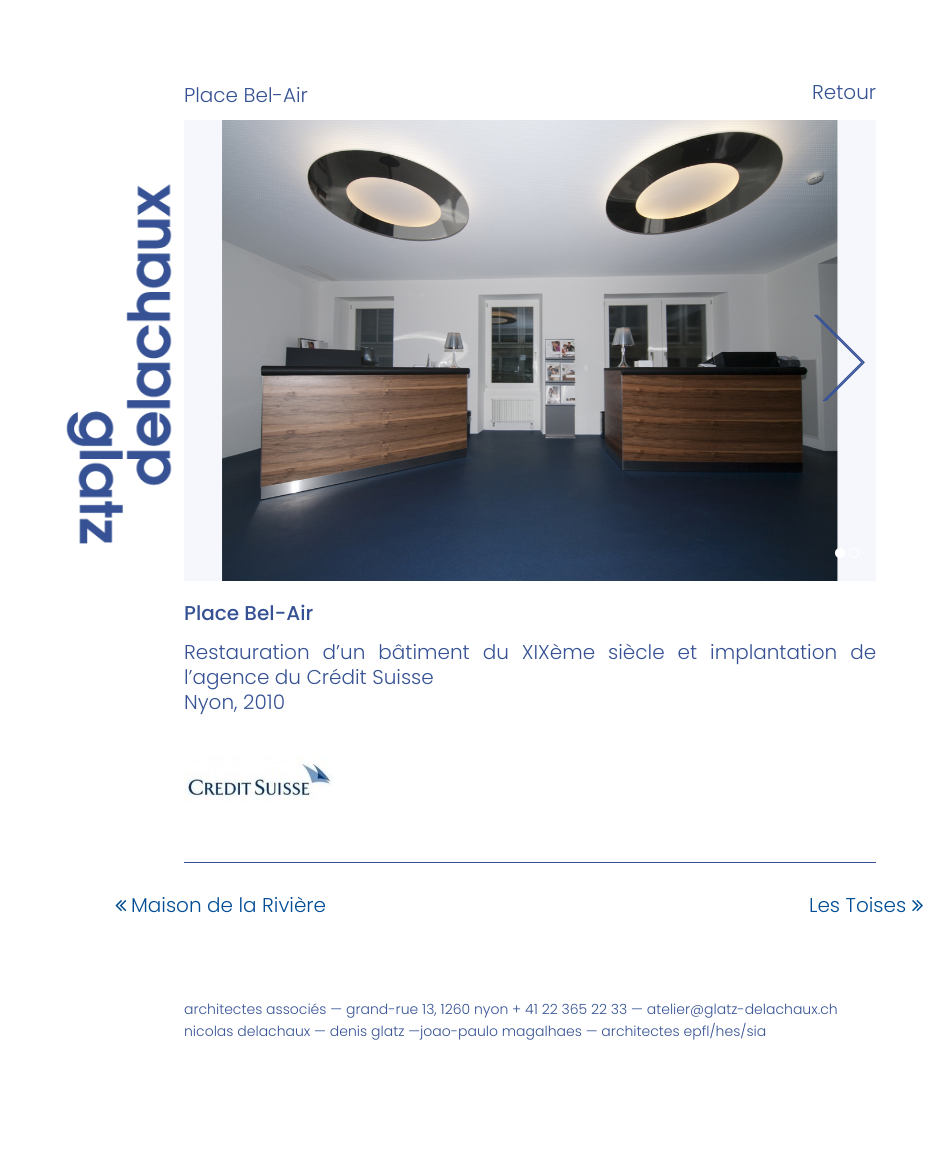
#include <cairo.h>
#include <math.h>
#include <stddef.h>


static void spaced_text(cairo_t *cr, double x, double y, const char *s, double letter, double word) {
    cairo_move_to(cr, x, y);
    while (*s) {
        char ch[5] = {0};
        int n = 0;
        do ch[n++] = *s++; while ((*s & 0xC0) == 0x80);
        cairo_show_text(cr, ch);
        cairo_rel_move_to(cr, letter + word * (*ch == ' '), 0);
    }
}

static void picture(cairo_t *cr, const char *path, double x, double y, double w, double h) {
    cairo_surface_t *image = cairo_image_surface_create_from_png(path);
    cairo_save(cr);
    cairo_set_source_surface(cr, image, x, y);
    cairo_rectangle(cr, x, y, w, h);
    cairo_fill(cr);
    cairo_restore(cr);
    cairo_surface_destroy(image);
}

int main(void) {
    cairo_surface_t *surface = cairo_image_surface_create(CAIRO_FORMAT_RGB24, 938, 1157);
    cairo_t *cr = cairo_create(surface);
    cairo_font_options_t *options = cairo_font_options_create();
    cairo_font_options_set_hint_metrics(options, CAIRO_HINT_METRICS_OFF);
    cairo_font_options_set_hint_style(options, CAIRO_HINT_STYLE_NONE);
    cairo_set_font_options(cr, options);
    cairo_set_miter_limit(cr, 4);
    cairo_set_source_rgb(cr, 1, 1, 1);
    cairo_paint(cr);
    picture(cr, "img1.png", 66, 184, 106, 360);
    cairo_set_source_rgb(cr, 0.212, 0.322, 0.58);
    cairo_rectangle(cr, 184, 862, 692, 1);
    cairo_fill(cr);
    cairo_select_font_face(cr, "Poppins Light", CAIRO_FONT_SLANT_NORMAL, CAIRO_FONT_WEIGHT_NORMAL);
    cairo_set_font_size(cr, 20);
    cairo_move_to(cr, 812, 99);
    cairo_show_text(cr, "Retour");
    cairo_move_to(cr, 184, 102);
    cairo_show_text(cr, "Place Bel-Air");
    picture(cr, "img2.png", 184, 120, 692, 461);
    picture(cr, "img3.png", 814, 314, 51, 87);
    cairo_set_source_rgb(cr, 1, 1, 1);
    cairo_arc(cr, 840, 553, 5, 0, 2 * M_PI);
    cairo_fill(cr);
    cairo_arc(cr, 854, 553, 4.5, 0, 2 * M_PI);
    cairo_set_line_width(cr, 1);
    cairo_stroke(cr);
    cairo_select_font_face(cr, "Poppins Medium", CAIRO_FONT_SLANT_NORMAL, CAIRO_FONT_WEIGHT_NORMAL);
    cairo_set_source_rgb(cr, 0.212, 0.322, 0.58);
    cairo_move_to(cr, 184, 620);
    cairo_show_text(cr, "Place Bel-Air");
    cairo_select_font_face(cr, "Poppins Light", CAIRO_FONT_SLANT_NORMAL, CAIRO_FONT_WEIGHT_NORMAL);
    spaced_text(cr, 184, 659, "Restauration d’un bâtiment du XIXème siècle et implantation de", 0, 7.5);
    cairo_move_to(cr, 184, 684);
    cairo_show_text(cr, "l’agence du Crédit Suisse");
    cairo_move_to(cr, 184, 709);
    cairo_show_text(cr, "Nyon, 2010");
    picture(cr, "img4.png", 184, 755, 150, 48);
    picture(cr, "img5.png", 115, 900, 12, 12);
    cairo_set_source_rgb(cr, 0, 0.302, 0.584);
    cairo_move_to(cr, 131, 912);
    cairo_show_text(cr, "Maison de la Rivière");
    cairo_move_to(cr, 809, 912);
    cairo_show_text(cr, "Les Toises");
    picture(cr, "img6.png", 912, 900, 11, 12);
    cairo_set_font_size(cr, 14);
    cairo_set_source_rgb(cr, 0.212, 0.322, 0.58);
    cairo_move_to(cr, 184, 1014);
    cairo_show_text(cr, "architectes associés — grand-rue 13, 1260 nyon + 41 22 365 22 33 — atelier@glatz-delachaux.ch");
    cairo_move_to(cr, 184, 1036);
    cairo_show_text(cr, "nicolas delachaux — denis glatz —joao-paulo magalhaes — architectes epfl/hes/sia");
    cairo_surface_write_to_png(surface, "page.png");
    cairo_font_options_destroy(options);
    cairo_destroy(cr);
    cairo_surface_destroy(surface);
    return 0;
}
